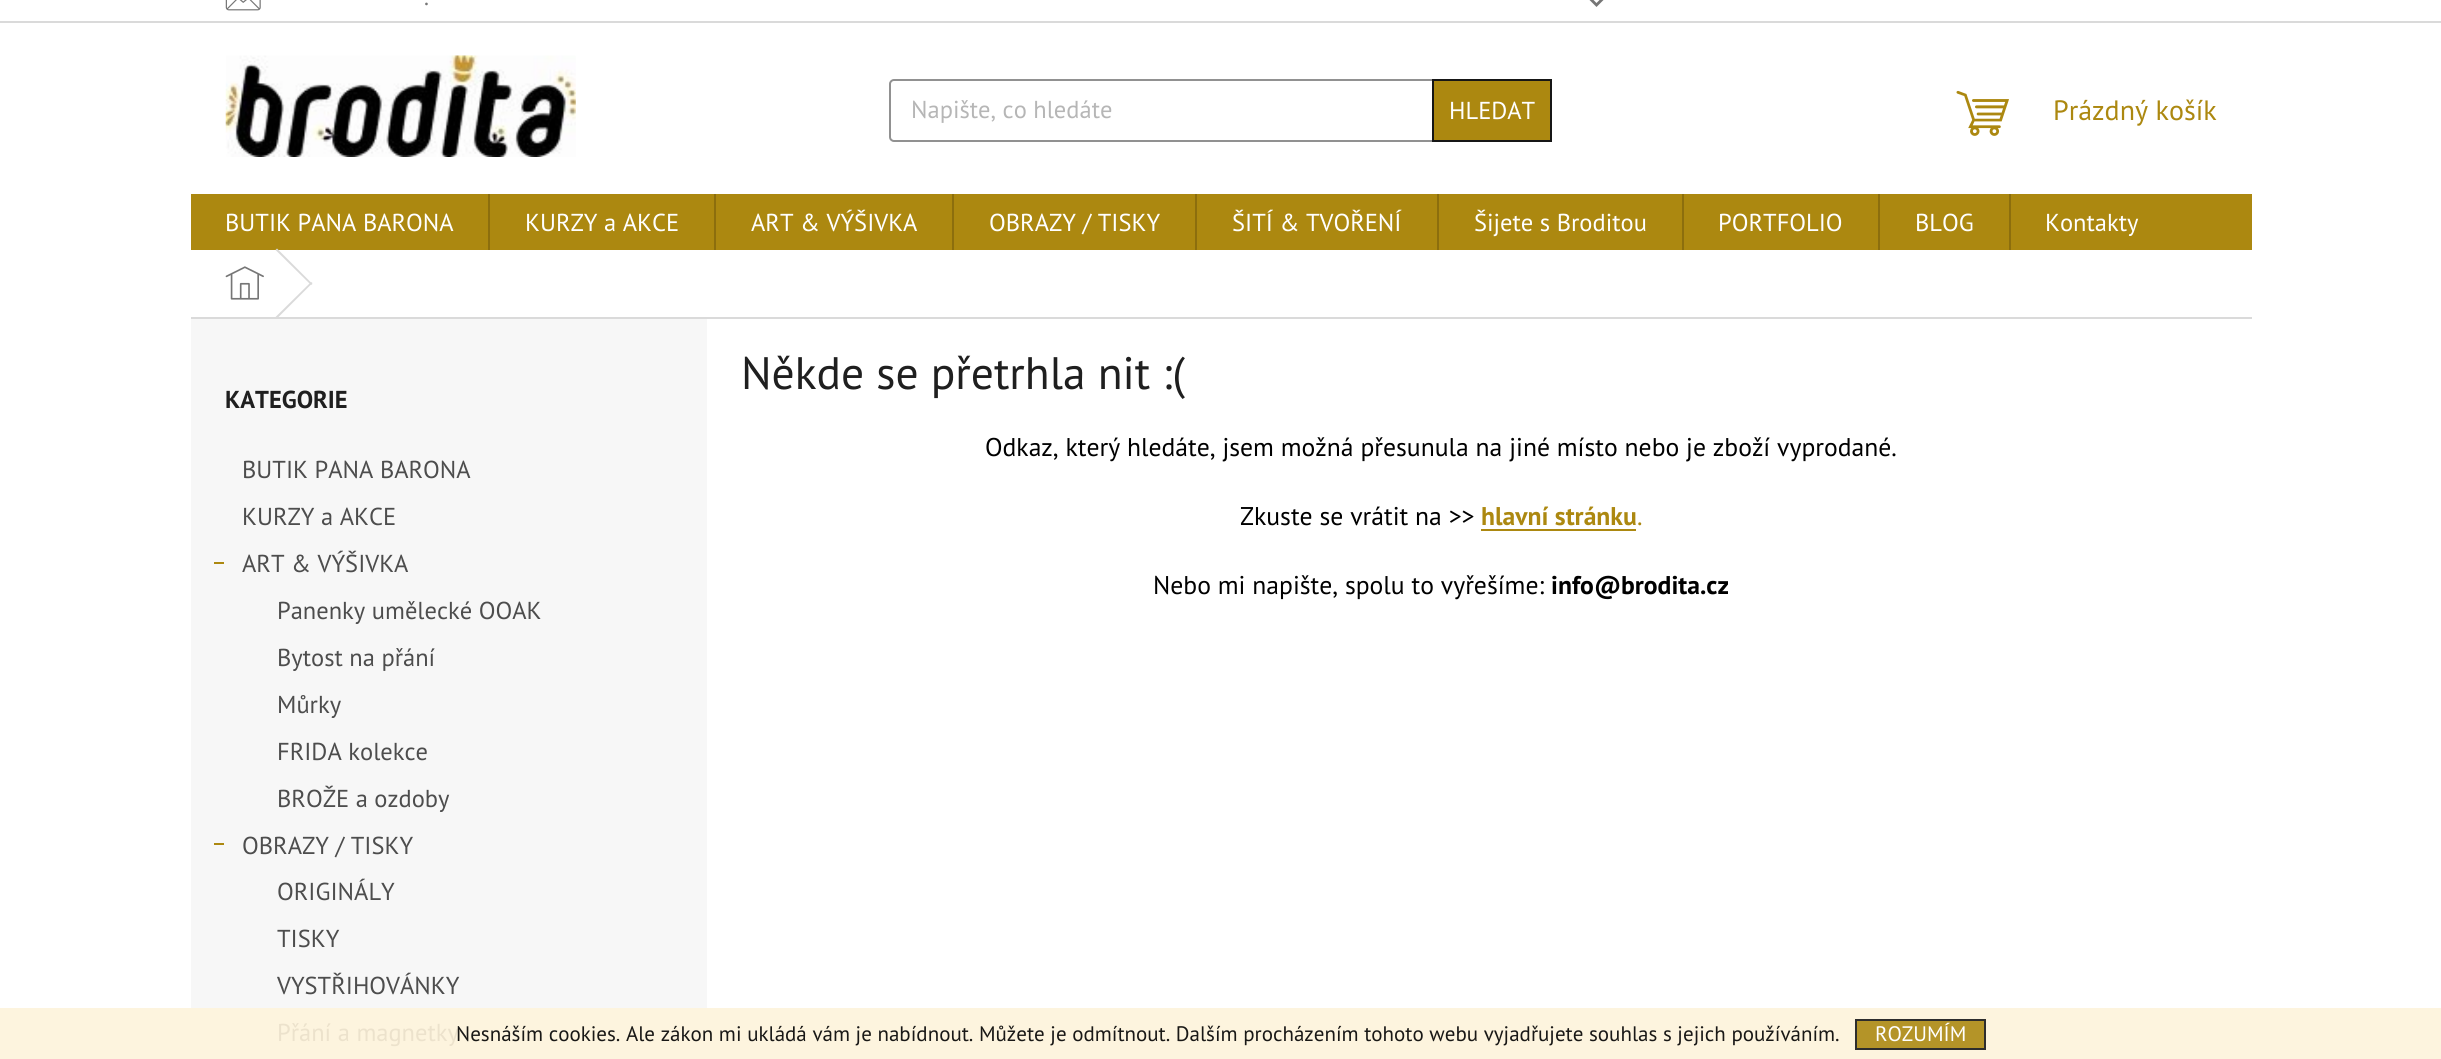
#include <cairo.h>
#include <math.h>
#include <stddef.h>


static void round_rect(cairo_t *cr, double x, double y, double w, double h, double r) {
    cairo_new_sub_path(cr);
    cairo_arc(cr, x + w - r, y + h - r, r, 0, M_PI / 2);
    cairo_arc(cr, x + r, y + h - r, r, M_PI / 2, M_PI);
    cairo_arc(cr, x + r, y + r, r, M_PI, 1.5 * M_PI);
    cairo_arc(cr, x + w - r, y + r, r, 1.5 * M_PI, 2 * M_PI);
    cairo_close_path(cr);
}

static void picture(cairo_t *cr, const char *path, double x, double y, double w, double h) {
    cairo_surface_t *image = cairo_image_surface_create_from_png(path);
    cairo_save(cr);
    cairo_set_source_surface(cr, image, x, y);
    cairo_rectangle(cr, x, y, w, h);
    cairo_fill(cr);
    cairo_restore(cr);
    cairo_surface_destroy(image);
}

int main(void) {
    cairo_surface_t *surface = cairo_image_surface_create(CAIRO_FORMAT_RGB24, 2441, 1059);
    cairo_t *cr = cairo_create(surface);
    cairo_font_options_t *options = cairo_font_options_create();
    cairo_font_options_set_hint_metrics(options, CAIRO_HINT_METRICS_OFF);
    cairo_font_options_set_hint_style(options, CAIRO_HINT_STYLE_NONE);
    cairo_set_font_options(cr, options);
    cairo_set_miter_limit(cr, 4);
    cairo_set_source_rgb(cr, 1, 1, 1);
    cairo_paint(cr);
    cairo_set_source_rgb(cr, 0.992, 0.957, 0.871);
    cairo_rectangle(cr, 0, 1008, 2441, 51);
    cairo_fill(cr);
    cairo_set_source_rgb(cr, 0.855, 0.855, 0.855);
    cairo_rectangle(cr, 0, 21, 2441, 2);
    cairo_fill(cr);
    picture(cr, "img1.png", 225, 0, 36, 11);
    cairo_select_font_face(cr, "PT Sans", CAIRO_FONT_SLANT_NORMAL, CAIRO_FONT_WEIGHT_NORMAL);
    cairo_set_font_size(cr, 23);
    cairo_set_source_rgb(cr, 0.463, 0.463, 0.463);
    cairo_move_to(cr, 424, 5);
    cairo_show_text(cr, ".");
    cairo_new_path(cr);
    cairo_move_to(cr, 1585.5, -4);
    cairo_line_to(cr, 1587.5, -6);
    cairo_line_to(cr, 1596.5, 3);
    cairo_line_to(cr, 1605.5, -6);
    cairo_line_to(cr, 1607.5, -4);
    cairo_line_to(cr, 1596.5, 7);
    cairo_close_path(cr);
    cairo_fill(cr);
    picture(cr, "img2.png", 225, 55, 351, 102);
    round_rect(cr, 890, 80, 661, 61, 4);
    cairo_set_source_rgb(cr, 0.569, 0.569, 0.569);
    cairo_stroke(cr);
    cairo_set_font_size(cr, 24.5);
    cairo_set_source_rgb(cr, 0.714, 0.714, 0.714);
    cairo_move_to(cr, 911, 118);
    cairo_show_text(cr, "Napište, co hledáte");
    cairo_set_source_rgb(cr, 0.675, 0.533, 0.063);
    cairo_rectangle(cr, 1433, 80, 118, 61);
    cairo_fill_preserve(cr);
    cairo_set_source_rgb(cr, 0.086, 0.086, 0.086);
    cairo_stroke(cr);
    cairo_set_source_rgb(cr, 1, 1, 1);
    cairo_move_to(cr, 1449, 119);
    cairo_show_text(cr, "HLEDAT");
    picture(cr, "img3.png", 1956, 90, 53, 46);
    cairo_set_font_size(cr, 28);
    cairo_set_source_rgb(cr, 0.675, 0.533, 0.063);
    cairo_move_to(cr, 2053, 120);
    cairo_show_text(cr, "Prázdný košík");
    cairo_rectangle(cr, 191, 194, 2061, 56);
    cairo_fill(cr);
    cairo_set_font_size(cr, 24.5);
    cairo_set_source_rgb(cr, 1, 1, 1);
    cairo_move_to(cr, 225, 231);
    cairo_show_text(cr, "BUTIK PANA BARONA");
    cairo_set_source_rgb(cr, 0.549, 0.431, 0.051);
    cairo_rectangle(cr, 488, 194, 2, 56);
    cairo_fill(cr);
    cairo_set_source_rgb(cr, 1, 1, 1);
    cairo_move_to(cr, 525, 231);
    cairo_show_text(cr, "KURZY a AKCE");
    cairo_set_source_rgb(cr, 0.549, 0.431, 0.051);
    cairo_rectangle(cr, 714, 194, 2, 56);
    cairo_fill(cr);
    cairo_set_source_rgb(cr, 1, 1, 1);
    cairo_move_to(cr, 751, 231);
    cairo_show_text(cr, "ART & VÝŠIVKA");
    cairo_set_source_rgb(cr, 0.549, 0.431, 0.051);
    cairo_rectangle(cr, 952, 194, 2, 56);
    cairo_fill(cr);
    cairo_set_source_rgb(cr, 1, 1, 1);
    cairo_move_to(cr, 989, 231);
    cairo_show_text(cr, "OBRAZY / TISKY");
    cairo_set_source_rgb(cr, 0.549, 0.431, 0.051);
    cairo_rectangle(cr, 1195, 194, 2, 56);
    cairo_fill(cr);
    cairo_set_source_rgb(cr, 1, 1, 1);
    cairo_move_to(cr, 1232, 231);
    cairo_show_text(cr, "ŠITÍ & TVOŘENÍ");
    cairo_set_source_rgb(cr, 0.549, 0.431, 0.051);
    cairo_rectangle(cr, 1437, 194, 2, 56);
    cairo_fill(cr);
    cairo_set_source_rgb(cr, 1, 1, 1);
    cairo_move_to(cr, 1474, 231);
    cairo_show_text(cr, "Šijete s Broditou");
    cairo_set_source_rgb(cr, 0.549, 0.431, 0.051);
    cairo_rectangle(cr, 1682, 194, 2, 56);
    cairo_fill(cr);
    cairo_set_source_rgb(cr, 1, 1, 1);
    cairo_move_to(cr, 1718, 231);
    cairo_show_text(cr, "PORTFOLIO");
    cairo_set_source_rgb(cr, 0.549, 0.431, 0.051);
    cairo_rectangle(cr, 1878, 194, 2, 56);
    cairo_fill(cr);
    cairo_set_source_rgb(cr, 1, 1, 1);
    cairo_move_to(cr, 1915, 231);
    cairo_show_text(cr, "BLOG");
    cairo_set_source_rgb(cr, 0.549, 0.431, 0.051);
    cairo_rectangle(cr, 2009, 194, 2, 56);
    cairo_fill(cr);
    cairo_set_source_rgb(cr, 1, 1, 1);
    cairo_move_to(cr, 2045, 231);
    cairo_show_text(cr, "Kontakty");
    cairo_set_source_rgb(cr, 0.855, 0.855, 0.855);
    cairo_rectangle(cr, 191, 317, 2061, 2);
    cairo_fill(cr);
    picture(cr, "img4.png", 225, 266, 39, 34);
    cairo_new_path(cr);
    cairo_move_to(cr, 275.5, 250);
    cairo_line_to(cr, 277, 248.5);
    cairo_line_to(cr, 312.5, 284);
    cairo_line_to(cr, 311, 285);
    cairo_close_path(cr);
    cairo_fill(cr);
    cairo_new_path(cr);
    cairo_move_to(cr, 311, 282);
    cairo_line_to(cr, 312.5, 283);
    cairo_line_to(cr, 277, 318.5);
    cairo_line_to(cr, 275.5, 317);
    cairo_close_path(cr);
    cairo_fill(cr);
    cairo_set_source_rgb(cr, 0.965, 0.965, 0.965);
    cairo_rectangle(cr, 191, 319, 516, 689);
    cairo_fill(cr);
    cairo_select_font_face(cr, "PT Sans", CAIRO_FONT_SLANT_NORMAL, CAIRO_FONT_WEIGHT_BOLD);
    cairo_set_source_rgb(cr, 0.122, 0.122, 0.122);
    cairo_move_to(cr, 225, 408);
    cairo_show_text(cr, "KATEGORIE");
    cairo_select_font_face(cr, "PT Sans", CAIRO_FONT_SLANT_NORMAL, CAIRO_FONT_WEIGHT_NORMAL);
    cairo_set_source_rgb(cr, 0.302, 0.302, 0.302);
    cairo_move_to(cr, 242, 478);
    cairo_show_text(cr, "BUTIK PANA BARONA");
    cairo_move_to(cr, 242, 525);
    cairo_show_text(cr, "KURZY a AKCE");
    cairo_set_source_rgb(cr, 0.675, 0.533, 0.063);
    cairo_rectangle(cr, 214, 562, 10, 2);
    cairo_fill(cr);
    cairo_set_source_rgb(cr, 0.302, 0.302, 0.302);
    cairo_move_to(cr, 242, 572);
    cairo_show_text(cr, "ART & VÝŠIVKA");
    cairo_move_to(cr, 277, 619);
    cairo_show_text(cr, "Panenky umělecké OOAK");
    cairo_move_to(cr, 277, 666);
    cairo_show_text(cr, "Bytost na přání");
    cairo_move_to(cr, 277, 713);
    cairo_show_text(cr, "Můrky");
    cairo_move_to(cr, 277, 760);
    cairo_show_text(cr, "FRIDA kolekce");
    cairo_move_to(cr, 277, 807);
    cairo_show_text(cr, "BROŽE a ozdoby");
    cairo_set_source_rgb(cr, 0.675, 0.533, 0.063);
    cairo_rectangle(cr, 214, 843, 10, 2);
    cairo_fill(cr);
    cairo_set_source_rgb(cr, 0.302, 0.302, 0.302);
    cairo_move_to(cr, 242, 854);
    cairo_show_text(cr, "OBRAZY / TISKY");
    cairo_move_to(cr, 277, 900);
    cairo_show_text(cr, "ORIGINÁLY");
    cairo_move_to(cr, 277, 947);
    cairo_show_text(cr, "TISKY");
    cairo_move_to(cr, 277, 994);
    cairo_show_text(cr, "VYSTŘIHOVÁNKY");
    cairo_set_source_rgb(cr, 0.922, 0.886, 0.8);
    cairo_move_to(cr, 277, 1041);
    cairo_show_text(cr, "Přání a magnetky");
    cairo_set_font_size(cr, 45.5);
    cairo_set_source_rgb(cr, 0.122, 0.122, 0.122);
    cairo_move_to(cr, 741, 389);
    cairo_show_text(cr, "Někde se přetrhla nit :(");
    cairo_set_font_size(cr, 25.65);
    cairo_set_source_rgb(cr, 0, 0, 0);
    cairo_move_to(cr, 985, 456);
    cairo_show_text(cr, "Odkaz, který hledáte, jsem možná přesunula na jiné místo nebo je zboží vyprodané.");
    cairo_move_to(cr, 1240, 525);
    cairo_show_text(cr, "Zkuste se vrátit na >>");
    cairo_select_font_face(cr, "PT Sans", CAIRO_FONT_SLANT_NORMAL, CAIRO_FONT_WEIGHT_BOLD);
    cairo_set_source_rgb(cr, 0.675, 0.533, 0.063);
    cairo_move_to(cr, 1481, 525);
    cairo_show_text(cr, "hlavní stránku");
    cairo_select_font_face(cr, "PT Sans", CAIRO_FONT_SLANT_NORMAL, CAIRO_FONT_WEIGHT_NORMAL);
    cairo_move_to(cr, 1637, 525);
    cairo_show_text(cr, ".");
    cairo_rectangle(cr, 1481, 529, 155, 2);
    cairo_fill(cr);
    cairo_set_source_rgb(cr, 0, 0, 0);
    cairo_move_to(cr, 1153, 594);
    cairo_show_text(cr, "Nebo mi napište, spolu to vyřešíme:");
    cairo_select_font_face(cr, "PT Sans", CAIRO_FONT_SLANT_NORMAL, CAIRO_FONT_WEIGHT_BOLD);
    cairo_move_to(cr, 1551, 594);
    cairo_show_text(cr, "info@brodita.cz");
    cairo_select_font_face(cr, "PT Sans", CAIRO_FONT_SLANT_NORMAL, CAIRO_FONT_WEIGHT_NORMAL);
    cairo_set_font_size(cr, 21);
    cairo_set_source_rgb(cr, 0.098, 0.094, 0.086);
    cairo_move_to(cr, 456, 1041);
    cairo_show_text(cr, "Nesnáším cookies. Ale zákon mi ukládá vám je nabídnout. Můžete je odmítnout. Dalším procházením tohoto webu vyjadřujete souhlas s jejich používáním.");
    cairo_set_source_rgb(cr, 0.706, 0.58, 0.157);
    cairo_rectangle(cr, 1856, 1020, 129, 29);
    cairo_fill_preserve(cr);
    cairo_set_source_rgb(cr, 0.176, 0.176, 0.176);
    cairo_stroke(cr);
    cairo_set_source_rgb(cr, 1, 1, 1);
    cairo_move_to(cr, 1875, 1041);
    cairo_show_text(cr, "ROZUMÍM");
    cairo_surface_write_to_png(surface, "page.png");
    cairo_font_options_destroy(options);
    cairo_destroy(cr);
    cairo_surface_destroy(surface);
    return 0;
}
